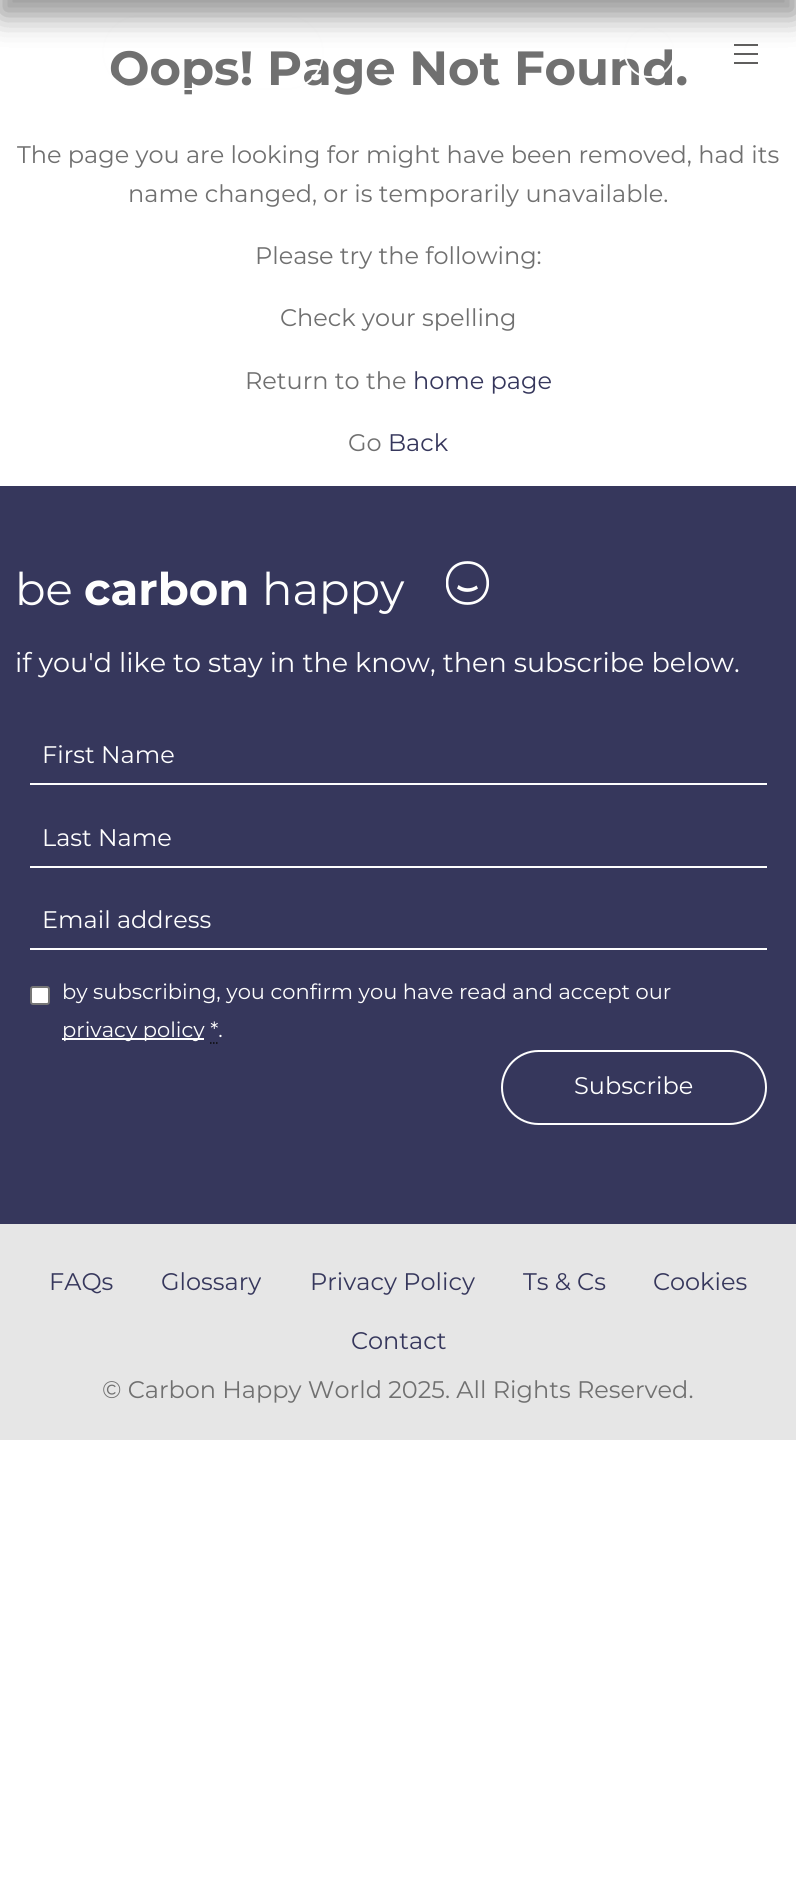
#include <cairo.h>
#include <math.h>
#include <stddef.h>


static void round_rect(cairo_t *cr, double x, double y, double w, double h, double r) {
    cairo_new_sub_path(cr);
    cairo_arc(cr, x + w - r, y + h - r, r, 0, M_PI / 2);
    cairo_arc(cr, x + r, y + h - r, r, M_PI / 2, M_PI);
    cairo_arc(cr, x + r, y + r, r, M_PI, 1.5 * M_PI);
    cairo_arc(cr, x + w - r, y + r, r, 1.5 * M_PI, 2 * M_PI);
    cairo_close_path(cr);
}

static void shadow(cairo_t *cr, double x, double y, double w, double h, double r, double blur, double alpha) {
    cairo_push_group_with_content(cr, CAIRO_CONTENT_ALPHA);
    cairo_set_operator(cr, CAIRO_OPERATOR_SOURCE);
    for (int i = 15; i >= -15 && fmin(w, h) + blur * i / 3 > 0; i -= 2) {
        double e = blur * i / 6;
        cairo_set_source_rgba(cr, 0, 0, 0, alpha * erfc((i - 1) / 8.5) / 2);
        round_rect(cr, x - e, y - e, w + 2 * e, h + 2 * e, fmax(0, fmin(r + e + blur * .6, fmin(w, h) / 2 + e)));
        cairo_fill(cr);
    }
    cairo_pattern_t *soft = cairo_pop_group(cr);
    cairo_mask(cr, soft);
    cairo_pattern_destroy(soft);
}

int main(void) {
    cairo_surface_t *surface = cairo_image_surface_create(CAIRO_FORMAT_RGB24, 796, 1888);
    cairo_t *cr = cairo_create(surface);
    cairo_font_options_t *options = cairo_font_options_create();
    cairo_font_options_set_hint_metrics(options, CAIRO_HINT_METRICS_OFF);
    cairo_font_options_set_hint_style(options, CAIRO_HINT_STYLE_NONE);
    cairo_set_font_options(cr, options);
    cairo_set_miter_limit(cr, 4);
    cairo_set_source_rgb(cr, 1, 1, 1);
    cairo_paint(cr);
    cairo_select_font_face(cr, "Montserrat", CAIRO_FONT_SLANT_NORMAL, CAIRO_FONT_WEIGHT_BOLD);
    cairo_set_font_size(cr, 48);
    cairo_set_source_rgb(cr, 0.439, 0.439, 0.439);
    cairo_move_to(cr, 109, 85);
    cairo_show_text(cr, "Oops! Page Not Found.");
    round_rect(cr, 103, 16, 220, 73, 36.5);
    cairo_set_source_rgb(cr, 0.996, 0.996, 0.996);
    cairo_stroke(cr);
    cairo_arc(cr, 649.5, 52.5, 24.5, 0, 2 * M_PI);
    cairo_stroke(cr);
    cairo_set_source_rgb(cr, 0.373, 0.369, 0.365);
    cairo_rectangle(cr, 734, 53, 24, 2);
    cairo_fill(cr);
    cairo_rectangle(cr, 734, 44, 24, 2);
    cairo_fill(cr);
    cairo_set_source_rgb(cr, 0.039, 0.039, 0.039);
    shadow(cr, 0, -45, 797, 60, 0, 15, 0.25);
    shadow(cr, 0, -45, 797, 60, 0, 15, 0.25);
    cairo_set_source_rgb(cr, 0.373, 0.369, 0.365);
    cairo_rectangle(cr, 734, 62, 24, 2);
    cairo_fill(cr);
    cairo_select_font_face(cr, "Montserrat", CAIRO_FONT_SLANT_NORMAL, CAIRO_FONT_WEIGHT_NORMAL);
    cairo_set_font_size(cr, 24);
    cairo_set_source_rgb(cr, 0.439, 0.439, 0.439);
    cairo_move_to(cr, 17, 163);
    cairo_show_text(cr, "The page you are looking for might have been removed, had its");
    cairo_move_to(cr, 128, 202);
    cairo_show_text(cr, "name changed, or is temporarily unavailable.");
    cairo_move_to(cr, 255, 264);
    cairo_show_text(cr, "Please try the following:");
    cairo_move_to(cr, 280, 326);
    cairo_show_text(cr, "Check your spelling");
    cairo_move_to(cr, 245, 389);
    cairo_show_text(cr, "Return to the");
    cairo_set_source_rgb(cr, 0.212, 0.216, 0.361);
    cairo_move_to(cr, 413, 389);
    cairo_show_text(cr, "home page");
    cairo_set_source_rgb(cr, 0.439, 0.439, 0.439);
    cairo_move_to(cr, 348, 451);
    cairo_show_text(cr, "Go");
    cairo_set_source_rgb(cr, 0.212, 0.216, 0.361);
    cairo_move_to(cr, 388, 451);
    cairo_show_text(cr, "Back");
    cairo_rectangle(cr, 0, 486, 796, 738);
    cairo_fill(cr);
    cairo_set_font_size(cr, 45);
    cairo_set_source_rgb(cr, 0.996, 0.996, 0.996);
    cairo_move_to(cr, 15, 605);
    cairo_show_text(cr, "be");
    cairo_select_font_face(cr, "Montserrat", CAIRO_FONT_SLANT_NORMAL, CAIRO_FONT_WEIGHT_BOLD);
    cairo_move_to(cr, 84, 605);
    cairo_show_text(cr, "carbon");
    cairo_select_font_face(cr, "Montserrat", CAIRO_FONT_SLANT_NORMAL, CAIRO_FONT_WEIGHT_NORMAL);
    cairo_move_to(cr, 262, 605);
    cairo_show_text(cr, "happy");
    cairo_save(cr);
    cairo_rectangle(cr, 446, 561, 43, 45);
    cairo_clip(cr);
    cairo_new_path(cr);
    cairo_move_to(cr, 467.5, 603.5);
    cairo_curve_to(cr, 494.5, 603.5, 494.5, 562.5, 467.5, 562.5);
    cairo_curve_to(cr, 440, 562.5, 440.5, 603.5, 467.5, 603.5);
    cairo_close_path(cr);
    cairo_set_source_rgb(cr, 1, 1, 1);
    cairo_set_line_width(cr, 2.7);
    cairo_stroke(cr);
    cairo_restore(cr);
    cairo_set_source_rgb(cr, 1, 1, 1);
    cairo_new_path(cr);
    cairo_move_to(cr, 460.5, 590.5);
    cairo_line_to(cr, 457, 588.5);
    cairo_line_to(cr, 458.5, 585);
    cairo_curve_to(cr, 463.5, 589, 471, 589.5, 476.5, 585.5);
    cairo_line_to(cr, 478, 588.5);
    cairo_curve_to(cr, 473, 592, 466, 593, 460.5, 590.5);
    cairo_close_path(cr);
    cairo_fill(cr);
    cairo_set_font_size(cr, 27);
    cairo_set_source_rgb(cr, 0.996, 0.996, 0.996);
    cairo_move_to(cr, 15, 672);
    cairo_show_text(cr, "if you'd like to stay in the know, then subscribe below.");
    cairo_rectangle(cr, 30, 783, 737, 2);
    cairo_fill(cr);
    cairo_set_font_size(cr, 24);
    cairo_move_to(cr, 42, 763);
    cairo_show_text(cr, "First Name");
    cairo_rectangle(cr, 30, 866, 737, 2);
    cairo_fill(cr);
    cairo_move_to(cr, 42, 846);
    cairo_show_text(cr, "Last Name");
    cairo_rectangle(cr, 30, 948, 737, 2);
    cairo_fill(cr);
    cairo_move_to(cr, 42, 928);
    cairo_show_text(cr, "Email address");
    cairo_set_source_rgb(cr, 1, 1, 1);
    round_rect(cr, 31, 987, 18, 17, 2);
    cairo_fill_preserve(cr);
    cairo_set_source_rgb(cr, 0.463, 0.463, 0.463);
    cairo_stroke(cr);
    cairo_set_font_size(cr, 21);
    cairo_set_source_rgb(cr, 0.996, 0.996, 0.996);
    cairo_move_to(cr, 62, 999);
    cairo_show_text(cr, "by subscribing, you confirm you have read and accept our");
    cairo_rectangle(cr, 62, 1038, 142, 2);
    cairo_fill(cr);
    cairo_move_to(cr, 62, 1037);
    cairo_show_text(cr, "privacy policy *.");
    cairo_new_path(cr);
    cairo_move_to(cr, 210, 1043);
    cairo_line_to(cr, 211.5, 1043);
    cairo_move_to(cr, 213, 1043);
    cairo_line_to(cr, 214.5, 1043);
    cairo_move_to(cr, 216, 1043);
    cairo_line_to(cr, 217.5, 1043);
    cairo_set_source_rgb(cr, 0.039, 0.039, 0.039);
    cairo_set_line_width(cr, 1.5);
    cairo_stroke(cr);
    round_rect(cr, 502, 1051, 264, 73, 36.5);
    cairo_set_source_rgb(cr, 0.996, 0.996, 0.996);
    cairo_set_line_width(cr, 2);
    cairo_stroke(cr);
    cairo_set_font_size(cr, 24);
    cairo_move_to(cr, 574, 1094);
    cairo_show_text(cr, "Subscribe");
    cairo_set_source_rgb(cr, 0.902, 0.902, 0.902);
    cairo_rectangle(cr, 0, 1224, 796, 216);
    cairo_fill(cr);
    cairo_set_source_rgb(cr, 0.212, 0.216, 0.361);
    cairo_move_to(cr, 49, 1290);
    cairo_show_text(cr, "FAQs");
    cairo_move_to(cr, 161, 1290);
    cairo_show_text(cr, "Glossary");
    cairo_move_to(cr, 310, 1290);
    cairo_show_text(cr, "Privacy Policy");
    cairo_move_to(cr, 523, 1290);
    cairo_show_text(cr, "Ts & Cs");
    cairo_move_to(cr, 653, 1290);
    cairo_show_text(cr, "Cookies");
    cairo_move_to(cr, 351, 1349);
    cairo_show_text(cr, "Contact");
    cairo_set_source_rgb(cr, 0.439, 0.439, 0.439);
    cairo_move_to(cr, 102, 1398);
    cairo_show_text(cr, "© Carbon Happy World 2025. All Rights Reserved.");
    cairo_surface_write_to_png(surface, "page.png");
    cairo_font_options_destroy(options);
    cairo_destroy(cr);
    cairo_surface_destroy(surface);
    return 0;
}
